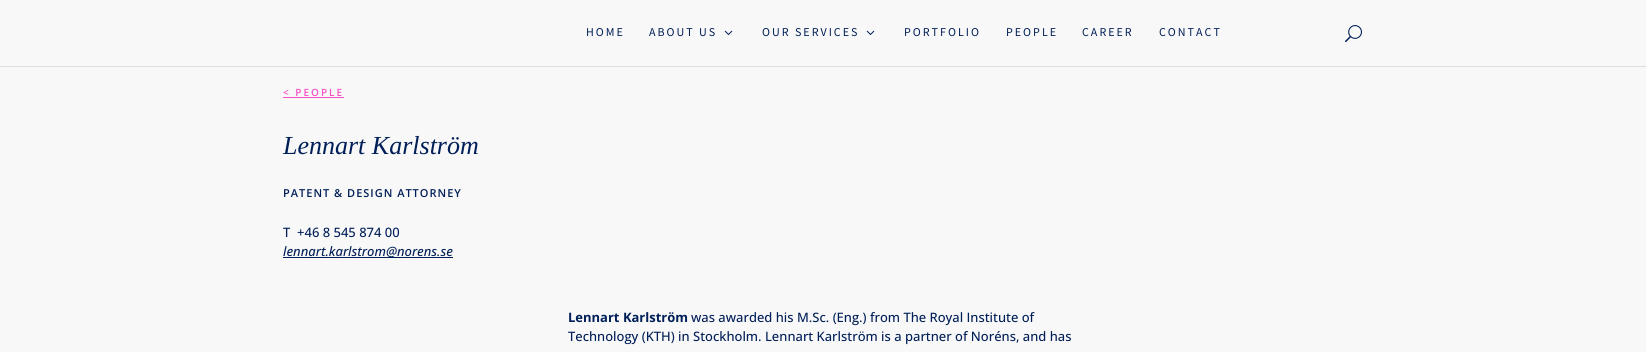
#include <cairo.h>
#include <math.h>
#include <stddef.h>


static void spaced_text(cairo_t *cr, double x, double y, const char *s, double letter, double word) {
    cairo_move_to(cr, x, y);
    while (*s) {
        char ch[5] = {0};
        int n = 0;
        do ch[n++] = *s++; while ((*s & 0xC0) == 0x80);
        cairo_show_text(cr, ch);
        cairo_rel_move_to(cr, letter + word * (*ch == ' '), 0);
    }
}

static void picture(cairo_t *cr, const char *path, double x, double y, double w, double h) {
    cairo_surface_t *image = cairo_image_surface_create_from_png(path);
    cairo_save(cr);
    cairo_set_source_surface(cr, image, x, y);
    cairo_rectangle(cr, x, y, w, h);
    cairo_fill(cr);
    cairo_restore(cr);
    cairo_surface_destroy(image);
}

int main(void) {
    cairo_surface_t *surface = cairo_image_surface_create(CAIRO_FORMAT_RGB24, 1646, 352);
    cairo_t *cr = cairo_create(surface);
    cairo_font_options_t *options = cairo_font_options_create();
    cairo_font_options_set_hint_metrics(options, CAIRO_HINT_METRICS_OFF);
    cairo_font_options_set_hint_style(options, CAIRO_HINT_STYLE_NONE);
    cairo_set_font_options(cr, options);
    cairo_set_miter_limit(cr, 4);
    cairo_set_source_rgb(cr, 0.969, 0.969, 0.969);
    cairo_paint(cr);
    cairo_set_source_rgb(cr, 0.871, 0.871, 0.871);
    cairo_rectangle(cr, 0, 66, 1646, 1);
    cairo_fill(cr);
    cairo_select_font_face(cr, "Source Sans Pro", CAIRO_FONT_SLANT_NORMAL, CAIRO_FONT_WEIGHT_NORMAL);
    cairo_set_font_size(cr, 12);
    cairo_set_source_rgb(cr, 0, 0.118, 0.341);
    spaced_text(cr, 586, 36, "HOME", 2, 0);
    spaced_text(cr, 649, 36, "ABOUT US", 2, 0);
    picture(cr, "img1.png", 724, 30, 9, 5);
    spaced_text(cr, 762, 36, "OUR SERVICES", 2, 0);
    picture(cr, "img1.png", 866, 30, 9, 5);
    spaced_text(cr, 904, 36, "PORTFOLIO", 2, 0);
    spaced_text(cr, 1006, 36, "PEOPLE", 2, 0);
    spaced_text(cr, 1082, 36, "CAREER", 2, 0);
    spaced_text(cr, 1159, 36, "CONTACT", 2, 0);
    picture(cr, "img2.png", 1345, 25, 17, 18);
    cairo_select_font_face(cr, "Open Sans SemiBold", CAIRO_FONT_SLANT_NORMAL, CAIRO_FONT_WEIGHT_NORMAL);
    cairo_set_font_size(cr, 10);
    cairo_set_source_rgb(cr, 0.957, 0.318, 0.776);
    spaced_text(cr, 283, 96, "< PEOPLE", 2, 0);
    cairo_rectangle(cr, 283, 97, 61, 1);
    cairo_fill(cr);
    cairo_select_font_face(cr, "Liberation Serif", CAIRO_FONT_SLANT_ITALIC, CAIRO_FONT_WEIGHT_NORMAL);
    cairo_set_font_size(cr, 26);
    cairo_set_source_rgb(cr, 0, 0.118, 0.341);
    cairo_move_to(cr, 283, 154);
    cairo_show_text(cr, "Lennart Karlström");
    cairo_select_font_face(cr, "Open Sans SemiBold", CAIRO_FONT_SLANT_NORMAL, CAIRO_FONT_WEIGHT_NORMAL);
    cairo_set_font_size(cr, 11);
    spaced_text(cr, 283, 197, "PATENT & DESIGN ATTORNEY", 1, 0);
    cairo_select_font_face(cr, "Open Sans Medium", CAIRO_FONT_SLANT_NORMAL, CAIRO_FONT_WEIGHT_NORMAL);
    cairo_set_font_size(cr, 13);
    cairo_move_to(cr, 283, 237);
    cairo_show_text(cr, "T  +46 8 545 874 00");
    cairo_rectangle(cr, 283, 257, 170, 1);
    cairo_fill(cr);
    cairo_select_font_face(cr, "Open Sans Medium", CAIRO_FONT_SLANT_ITALIC, CAIRO_FONT_WEIGHT_NORMAL);
    cairo_move_to(cr, 283, 256);
    cairo_show_text(cr, "lennart.karlstrom@norens.se");
    cairo_select_font_face(cr, "Open Sans", CAIRO_FONT_SLANT_NORMAL, CAIRO_FONT_WEIGHT_BOLD);
    cairo_move_to(cr, 568, 322);
    cairo_show_text(cr, "Lennart Karlström");
    cairo_select_font_face(cr, "Open Sans Medium", CAIRO_FONT_SLANT_NORMAL, CAIRO_FONT_WEIGHT_NORMAL);
    cairo_move_to(cr, 691, 322);
    cairo_show_text(cr, "was awarded his M.Sc. (Eng.) from The Royal Institute of");
    cairo_move_to(cr, 568, 341);
    cairo_show_text(cr, "Technology (KTH) in Stockholm. Lennart Karlström is a partner of Noréns, and has");
    cairo_surface_write_to_png(surface, "page.png");
    cairo_font_options_destroy(options);
    cairo_destroy(cr);
    cairo_surface_destroy(surface);
    return 0;
}
